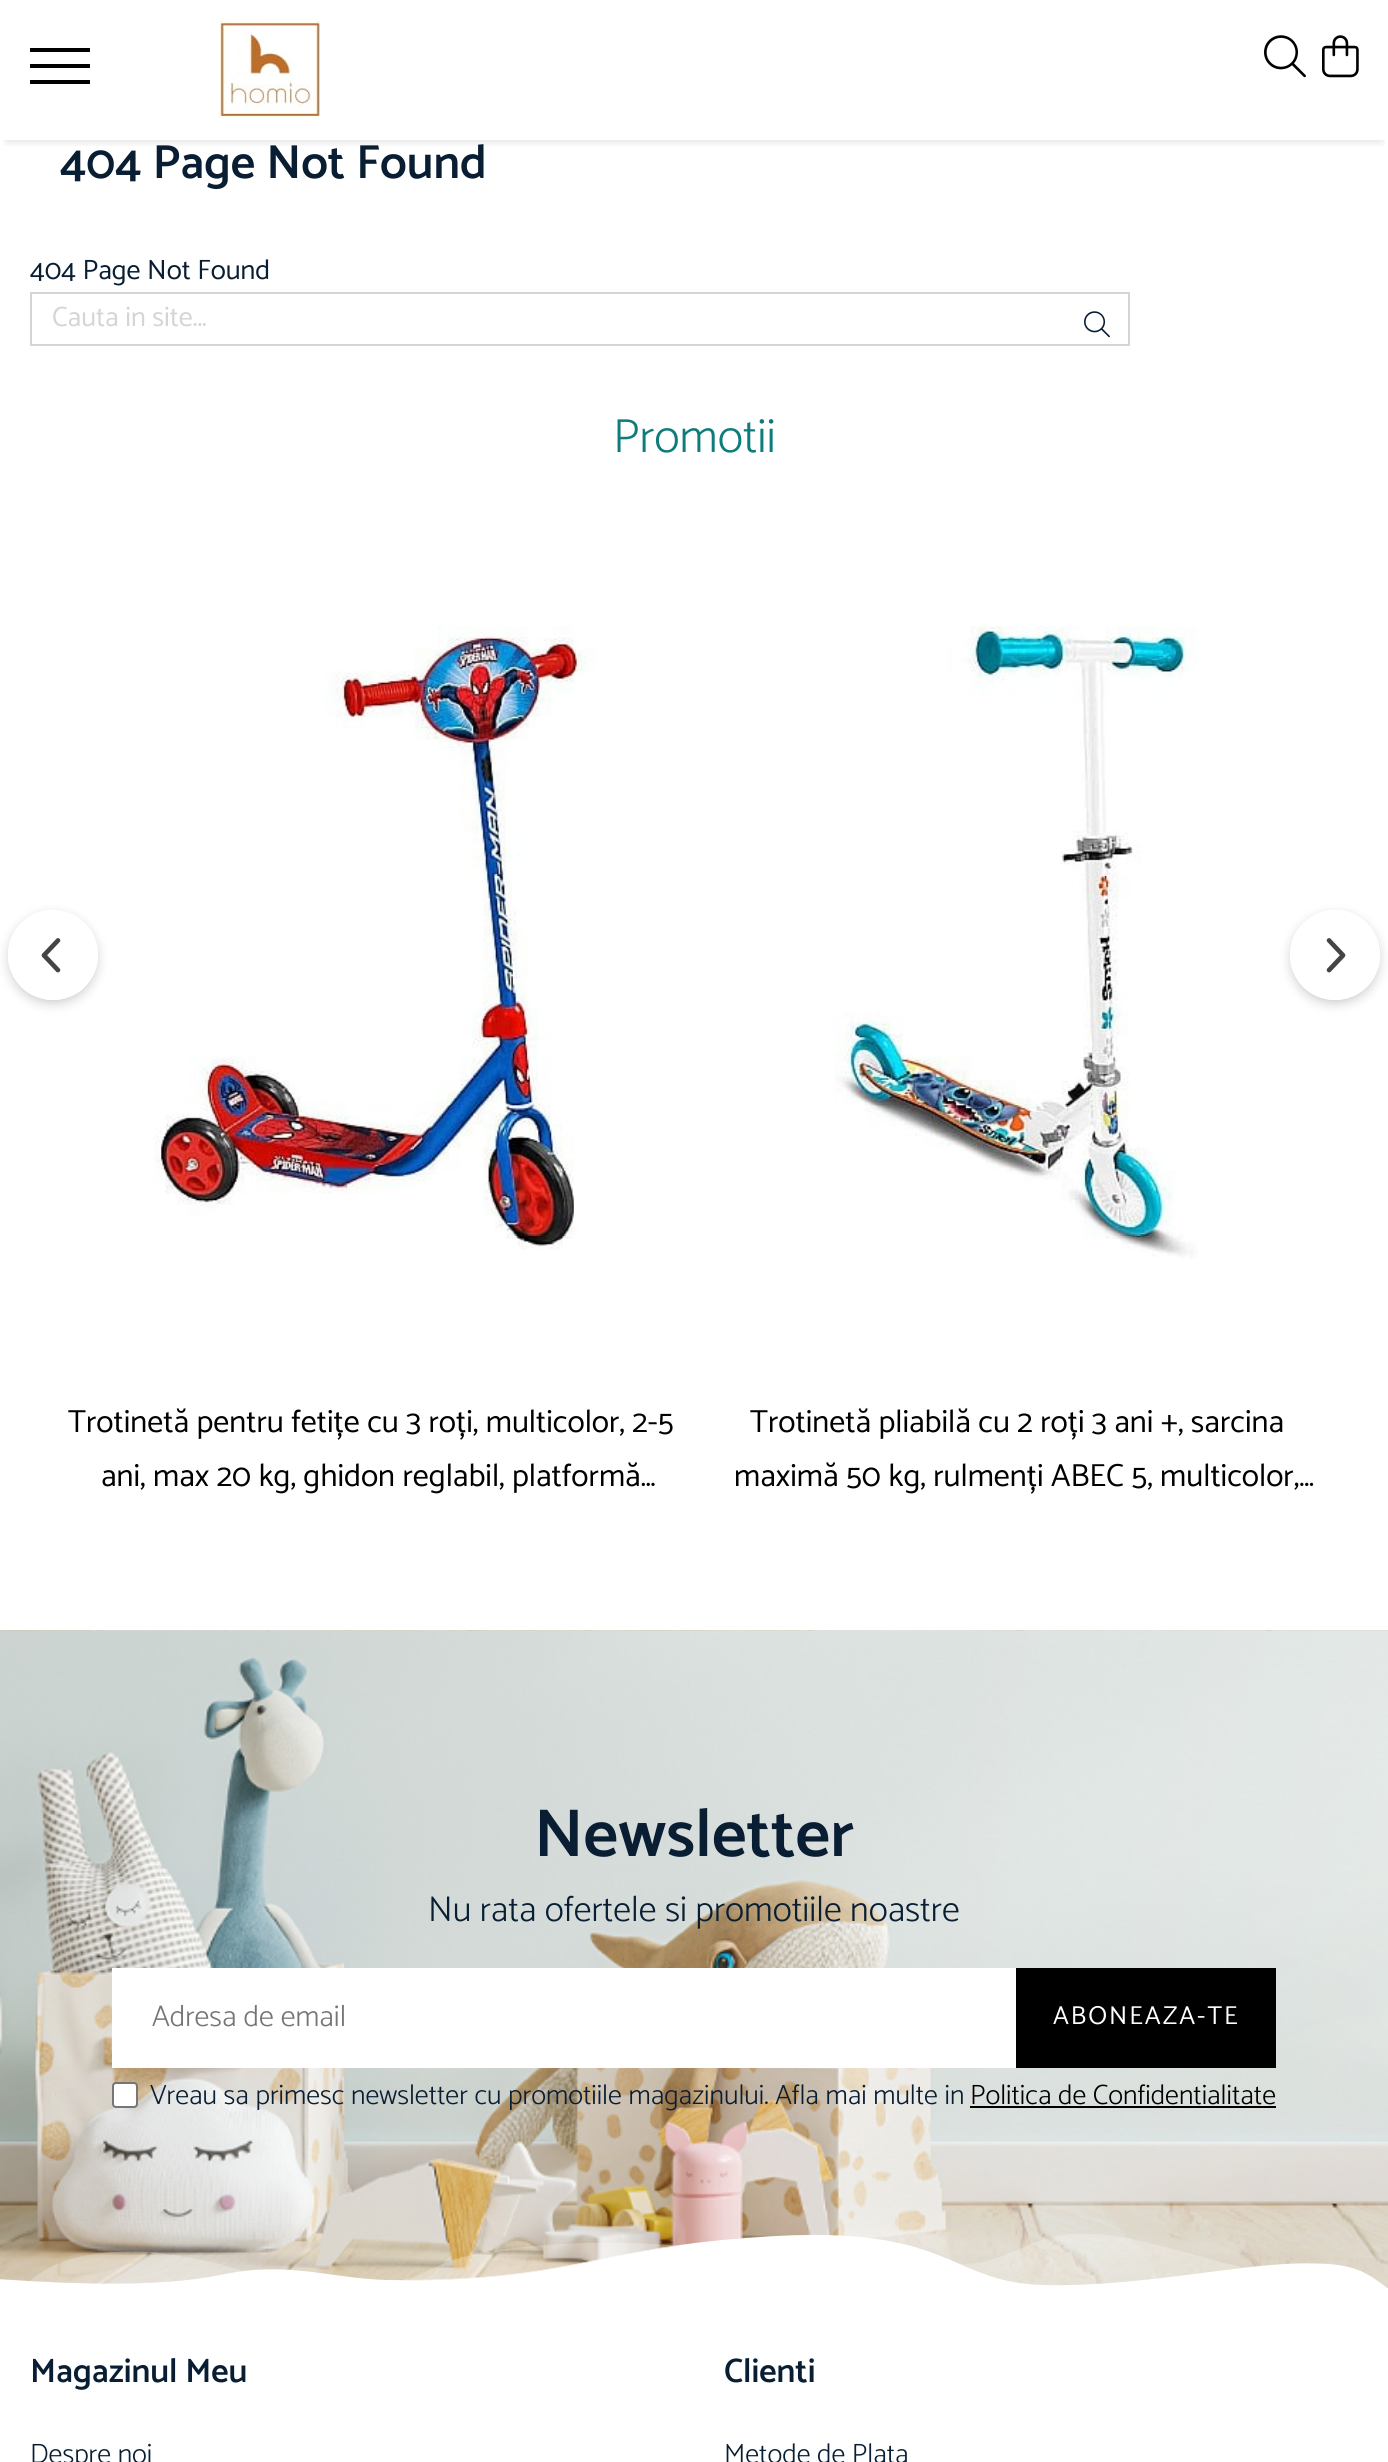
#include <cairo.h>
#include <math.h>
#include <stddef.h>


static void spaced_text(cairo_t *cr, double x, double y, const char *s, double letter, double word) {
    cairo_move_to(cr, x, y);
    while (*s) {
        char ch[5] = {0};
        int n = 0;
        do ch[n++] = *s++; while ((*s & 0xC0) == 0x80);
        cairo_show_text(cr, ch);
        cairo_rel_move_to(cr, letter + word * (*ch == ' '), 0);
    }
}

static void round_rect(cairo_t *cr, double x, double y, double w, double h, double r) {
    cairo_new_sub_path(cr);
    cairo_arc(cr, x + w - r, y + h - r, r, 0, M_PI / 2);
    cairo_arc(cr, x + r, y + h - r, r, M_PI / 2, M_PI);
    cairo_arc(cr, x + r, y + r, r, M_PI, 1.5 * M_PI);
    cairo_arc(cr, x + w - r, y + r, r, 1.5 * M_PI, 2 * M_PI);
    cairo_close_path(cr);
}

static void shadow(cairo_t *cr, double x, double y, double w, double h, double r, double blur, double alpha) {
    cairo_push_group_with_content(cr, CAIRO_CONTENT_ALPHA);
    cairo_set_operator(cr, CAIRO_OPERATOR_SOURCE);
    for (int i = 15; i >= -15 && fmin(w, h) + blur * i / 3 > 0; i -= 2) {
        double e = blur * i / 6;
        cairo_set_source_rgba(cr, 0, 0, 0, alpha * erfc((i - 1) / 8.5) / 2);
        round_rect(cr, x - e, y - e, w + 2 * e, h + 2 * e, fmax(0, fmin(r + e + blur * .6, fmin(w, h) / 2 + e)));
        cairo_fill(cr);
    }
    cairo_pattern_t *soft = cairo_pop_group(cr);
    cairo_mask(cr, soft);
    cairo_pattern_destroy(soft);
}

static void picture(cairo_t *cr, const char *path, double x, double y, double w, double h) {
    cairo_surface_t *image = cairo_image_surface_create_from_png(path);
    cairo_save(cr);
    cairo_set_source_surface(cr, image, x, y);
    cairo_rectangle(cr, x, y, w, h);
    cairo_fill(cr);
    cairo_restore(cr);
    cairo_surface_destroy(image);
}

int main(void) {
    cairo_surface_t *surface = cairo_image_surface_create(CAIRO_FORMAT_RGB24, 1388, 2462);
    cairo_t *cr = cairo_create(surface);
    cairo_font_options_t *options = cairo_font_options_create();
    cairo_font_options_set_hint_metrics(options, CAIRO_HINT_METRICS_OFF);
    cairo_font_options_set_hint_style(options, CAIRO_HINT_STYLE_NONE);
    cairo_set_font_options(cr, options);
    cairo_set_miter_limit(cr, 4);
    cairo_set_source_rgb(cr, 1, 1, 1);
    cairo_paint(cr);
    cairo_save(cr);
    cairo_rectangle(cr, 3, 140, 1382, 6);
    cairo_clip(cr);
    cairo_set_source_rgb(cr, 0, 0, 0);
    shadow(cr, 8, 12, 1372, 124, 0, 7, 0.3);
    cairo_restore(cr);
    cairo_set_source_rgb(cr, 0, 0, 0);
    cairo_rectangle(cr, 30, 64, 60, 4);
    cairo_fill(cr);
    cairo_rectangle(cr, 30, 48, 60, 4);
    cairo_fill(cr);
    cairo_rectangle(cr, 30, 80, 60, 4);
    cairo_fill(cr);
    picture(cr, "img1.png", 220, 20, 100, 98);
    picture(cr, "img2.png", 1264, 35, 42, 43);
    picture(cr, "img3.png", 1322, 35, 37, 43);
    cairo_select_font_face(cr, "Catamaran SemiBold", CAIRO_FONT_SLANT_NORMAL, CAIRO_FONT_WEIGHT_NORMAL);
    cairo_set_font_size(cr, 48);
    cairo_set_source_rgb(cr, 0.039, 0.118, 0.2);
    cairo_move_to(cr, 60, 178);
    cairo_show_text(cr, "404 Page Not Found");
    cairo_select_font_face(cr, "Catamaran", CAIRO_FONT_SLANT_NORMAL, CAIRO_FONT_WEIGHT_NORMAL);
    cairo_set_font_size(cr, 28);
    cairo_move_to(cr, 30, 279);
    cairo_show_text(cr, "404 Page Not Found");
    cairo_rectangle(cr, 31, 293, 1098, 52);
    cairo_set_source_rgb(cr, 0.835, 0.835, 0.835);
    cairo_stroke(cr);
    cairo_move_to(cr, 52, 326);
    cairo_show_text(cr, "Cauta in site...");
    picture(cr, "img4.png", 1084, 311, 26, 27);
    cairo_select_font_face(cr, "Catamaran Light", CAIRO_FONT_SLANT_NORMAL, CAIRO_FONT_WEIGHT_NORMAL);
    cairo_set_font_size(cr, 48);
    cairo_set_source_rgb(cr, 0.055, 0.486, 0.482);
    cairo_move_to(cr, 613, 452);
    cairo_show_text(cr, "Promotii");
    cairo_save(cr);
    cairo_set_fill_rule(cr, CAIRO_FILL_RULE_EVEN_ODD);
    cairo_new_path(cr);
    cairo_move_to(cr, 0, 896);
    cairo_line_to(cr, 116, 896);
    cairo_line_to(cr, 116, 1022);
    cairo_line_to(cr, 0, 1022);
    cairo_close_path(cr);
    cairo_move_to(cr, 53, 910);
    cairo_curve_to(cr, 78, 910, 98, 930, 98, 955);
    cairo_curve_to(cr, 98, 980, 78, 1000, 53, 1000);
    cairo_curve_to(cr, 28, 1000, 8, 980, 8, 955);
    cairo_curve_to(cr, 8, 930, 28, 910, 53, 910);
    cairo_close_path(cr);
    cairo_clip(cr);
    cairo_set_source_rgb(cr, 0, 0, 0);
    shadow(cr, 12, 918, 82, 82, 41, 7, 0.3);
    cairo_restore(cr);
    cairo_set_source_rgba(cr, 1, 1, 1, 0.85);
    cairo_arc(cr, 53, 955, 45, 0, 2 * M_PI);
    cairo_fill(cr);
    picture(cr, "img5.png", 41, 938, 20, 35);
    cairo_save(cr);
    cairo_set_fill_rule(cr, CAIRO_FILL_RULE_EVEN_ODD);
    cairo_new_path(cr);
    cairo_move_to(cr, 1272, 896);
    cairo_line_to(cr, 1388, 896);
    cairo_line_to(cr, 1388, 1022);
    cairo_line_to(cr, 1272, 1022);
    cairo_close_path(cr);
    cairo_move_to(cr, 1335, 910);
    cairo_curve_to(cr, 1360, 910, 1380, 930, 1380, 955);
    cairo_curve_to(cr, 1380, 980, 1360, 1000, 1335, 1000);
    cairo_curve_to(cr, 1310, 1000, 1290, 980, 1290, 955);
    cairo_curve_to(cr, 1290, 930, 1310, 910, 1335, 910);
    cairo_close_path(cr);
    cairo_clip(cr);
    cairo_set_source_rgb(cr, 0, 0, 0);
    shadow(cr, 1294, 918, 82, 82, 41, 7, 0.3);
    cairo_restore(cr);
    cairo_arc(cr, 1335, 955, 45, 0, 2 * M_PI);
    cairo_fill(cr);
    picture(cr, "img6.png", 1326, 938, 20, 35);
    picture(cr, "img7.png", 154, 626, 442, 624);
    cairo_select_font_face(cr, "Catamaran", CAIRO_FONT_SLANT_NORMAL, CAIRO_FONT_WEIGHT_NORMAL);
    cairo_set_font_size(cr, 32);
    cairo_set_source_rgb(cr, 0, 0, 0);
    cairo_move_to(cr, 68, 1432);
    cairo_show_text(cr, "Trotinetă pentru fetițe cu 3 roți, multicolor, 2-5");
    cairo_move_to(cr, 101, 1486);
    cairo_show_text(cr, "ani, max 20 kg, ghidon reglabil, platformă…");
    picture(cr, "img8.png", 834, 626, 364, 633);
    cairo_move_to(cr, 750, 1432);
    cairo_show_text(cr, "Trotinetă pliabilă cu 2 roți 3 ani +, sarcina");
    cairo_move_to(cr, 734, 1486);
    cairo_show_text(cr, "maximă 50 kg, rulmenți ABEC 5, multicolor,…");
    picture(cr, "img9.png", 0, 1630, 1388, 658);
    cairo_select_font_face(cr, "Catamaran SemiBold", CAIRO_FONT_SLANT_NORMAL, CAIRO_FONT_WEIGHT_NORMAL);
    cairo_set_font_size(cr, 68);
    cairo_set_source_rgb(cr, 0.039, 0.118, 0.2);
    cairo_move_to(cr, 534, 1856);
    cairo_show_text(cr, "Newsletter");
    cairo_select_font_face(cr, "Catamaran Light", CAIRO_FONT_SLANT_NORMAL, CAIRO_FONT_WEIGHT_NORMAL);
    cairo_set_font_size(cr, 36);
    cairo_move_to(cr, 428, 1921);
    cairo_show_text(cr, "Nu rata ofertele si promotiile noastre");
    cairo_set_source_rgb(cr, 1, 1, 1);
    cairo_rectangle(cr, 112, 1968, 904, 100);
    cairo_fill(cr);
    cairo_set_font_size(cr, 30);
    cairo_set_source_rgb(cr, 0.459, 0.459, 0.459);
    cairo_move_to(cr, 152, 2026);
    cairo_show_text(cr, "Adresa de email");
    cairo_set_source_rgb(cr, 0, 0, 0);
    cairo_rectangle(cr, 1016, 1968, 260, 100);
    cairo_fill(cr);
    cairo_select_font_face(cr, "Catamaran", CAIRO_FONT_SLANT_NORMAL, CAIRO_FONT_WEIGHT_NORMAL);
    cairo_set_font_size(cr, 26);
    cairo_set_source_rgb(cr, 1, 1, 1);
    spaced_text(cr, 1053, 2024, "ABONEAZA-TE", 2, 0);
    round_rect(cr, 113, 2083, 24, 24, 3);
    cairo_fill_preserve(cr);
    cairo_set_source_rgb(cr, 0.463, 0.463, 0.463);
    cairo_stroke(cr);
    cairo_select_font_face(cr, "Catamaran Light", CAIRO_FONT_SLANT_NORMAL, CAIRO_FONT_WEIGHT_NORMAL);
    cairo_set_font_size(cr, 28);
    cairo_set_source_rgb(cr, 0.039, 0.118, 0.2);
    cairo_move_to(cr, 150, 2104);
    cairo_show_text(cr, "Vreau sa primesc newsletter cu promotiile magazinului. Afla mai multe in");
    cairo_set_source_rgb(cr, 0, 0, 0);
    cairo_move_to(cr, 970, 2104);
    cairo_show_text(cr, "Politica de Confidentialitate");
    cairo_rectangle(cr, 970, 2106, 306, 2);
    cairo_fill(cr);
    picture(cr, "img10.png", 0, 2234, 1387, 54);
    cairo_select_font_face(cr, "Catamaran SemiBold", CAIRO_FONT_SLANT_NORMAL, CAIRO_FONT_WEIGHT_NORMAL);
    cairo_set_font_size(cr, 34);
    cairo_set_source_rgb(cr, 0.039, 0.118, 0.2);
    cairo_move_to(cr, 30, 2382);
    cairo_show_text(cr, "Magazinul Meu");
    cairo_select_font_face(cr, "Catamaran Light", CAIRO_FONT_SLANT_NORMAL, CAIRO_FONT_WEIGHT_NORMAL);
    cairo_set_font_size(cr, 28);
    cairo_move_to(cr, 30, 2463);
    cairo_show_text(cr, "Despre noi");
    cairo_select_font_face(cr, "Catamaran SemiBold", CAIRO_FONT_SLANT_NORMAL, CAIRO_FONT_WEIGHT_NORMAL);
    cairo_set_font_size(cr, 34);
    cairo_move_to(cr, 724, 2382);
    cairo_show_text(cr, "Clienti");
    cairo_select_font_face(cr, "Catamaran Light", CAIRO_FONT_SLANT_NORMAL, CAIRO_FONT_WEIGHT_NORMAL);
    cairo_set_font_size(cr, 28);
    cairo_move_to(cr, 724, 2463);
    cairo_show_text(cr, "Metode de Plata");
    cairo_surface_write_to_png(surface, "page.png");
    cairo_font_options_destroy(options);
    cairo_destroy(cr);
    cairo_surface_destroy(surface);
    return 0;
}
